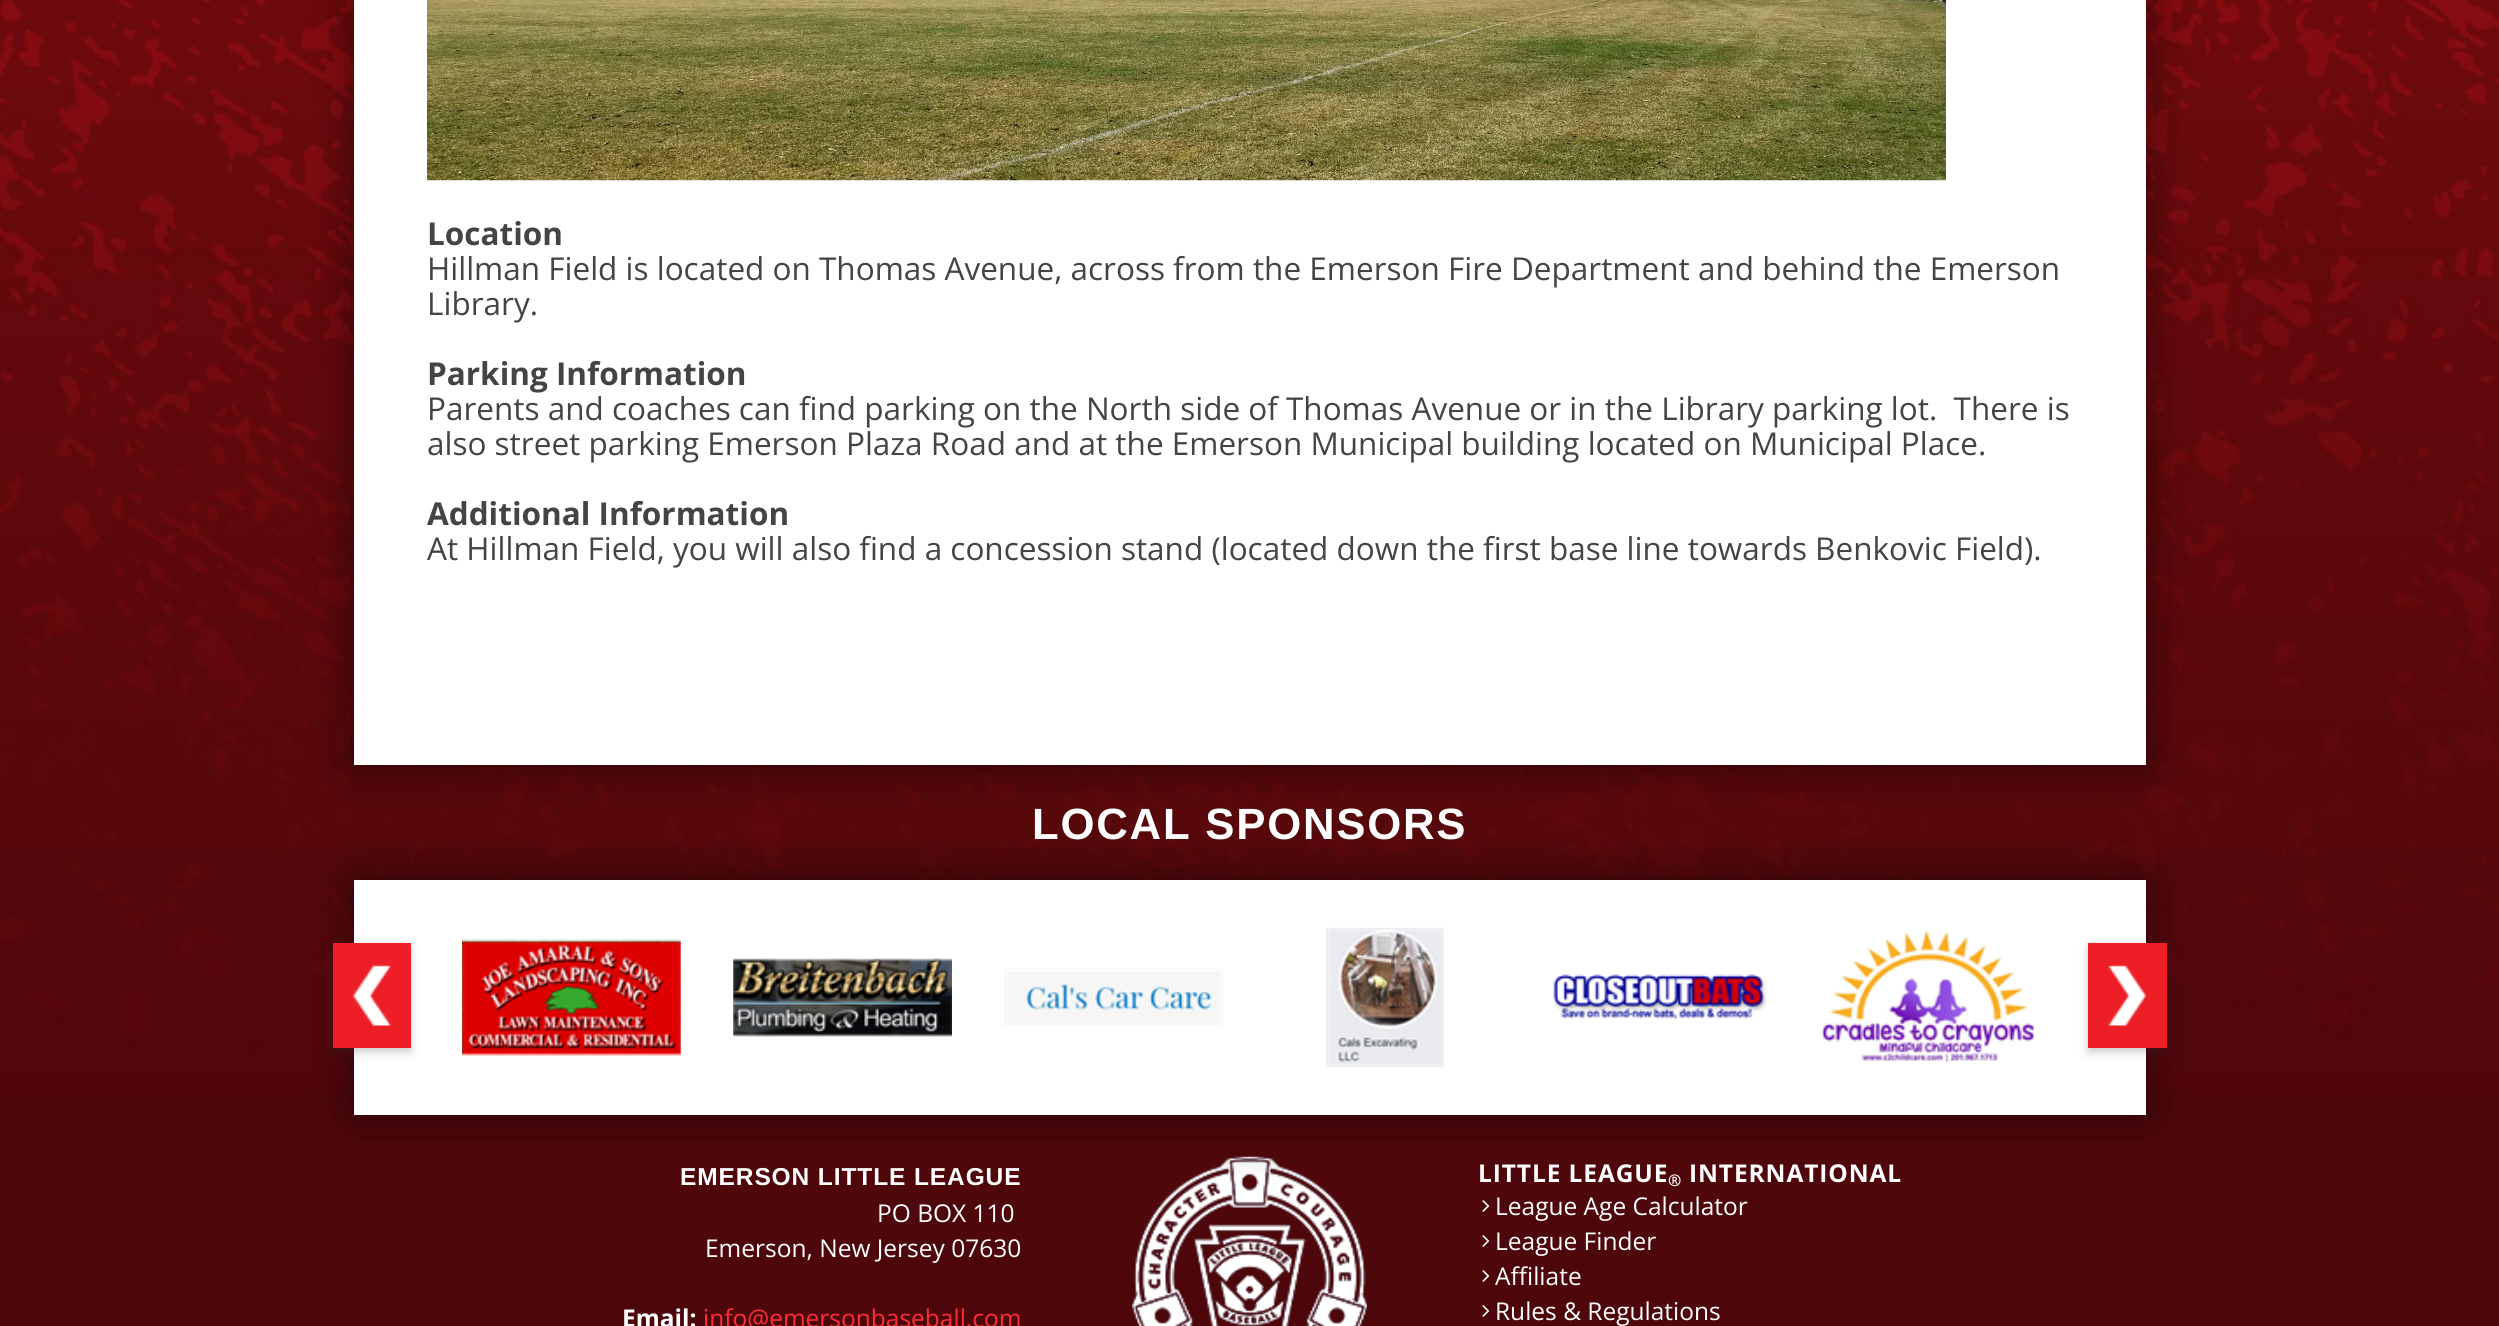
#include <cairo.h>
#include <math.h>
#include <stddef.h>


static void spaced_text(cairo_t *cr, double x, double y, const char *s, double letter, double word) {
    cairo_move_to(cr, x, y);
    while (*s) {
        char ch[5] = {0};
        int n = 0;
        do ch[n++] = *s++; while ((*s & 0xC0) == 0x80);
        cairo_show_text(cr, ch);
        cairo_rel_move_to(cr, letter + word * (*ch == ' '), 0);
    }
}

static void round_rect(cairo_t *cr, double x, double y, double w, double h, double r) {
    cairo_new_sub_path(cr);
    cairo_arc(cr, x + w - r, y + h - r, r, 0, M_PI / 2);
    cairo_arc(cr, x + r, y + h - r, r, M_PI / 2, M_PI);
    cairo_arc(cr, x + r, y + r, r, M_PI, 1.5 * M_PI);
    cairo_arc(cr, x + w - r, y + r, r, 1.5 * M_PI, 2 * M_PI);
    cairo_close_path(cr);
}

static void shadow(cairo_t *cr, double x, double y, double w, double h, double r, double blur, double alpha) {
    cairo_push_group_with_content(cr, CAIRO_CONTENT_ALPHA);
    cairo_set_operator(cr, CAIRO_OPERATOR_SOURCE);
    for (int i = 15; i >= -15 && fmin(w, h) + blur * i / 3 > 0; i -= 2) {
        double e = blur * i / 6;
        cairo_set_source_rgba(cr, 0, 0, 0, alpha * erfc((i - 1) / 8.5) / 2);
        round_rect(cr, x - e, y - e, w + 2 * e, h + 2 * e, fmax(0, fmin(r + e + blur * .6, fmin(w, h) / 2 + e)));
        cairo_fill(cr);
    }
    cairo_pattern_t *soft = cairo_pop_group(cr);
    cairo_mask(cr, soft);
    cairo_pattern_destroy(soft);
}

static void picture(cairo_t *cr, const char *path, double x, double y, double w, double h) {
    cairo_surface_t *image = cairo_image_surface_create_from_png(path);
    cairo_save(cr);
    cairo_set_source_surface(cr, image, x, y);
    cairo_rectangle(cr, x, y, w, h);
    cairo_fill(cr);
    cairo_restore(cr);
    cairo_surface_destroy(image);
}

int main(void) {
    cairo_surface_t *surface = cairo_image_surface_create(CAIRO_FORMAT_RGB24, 2499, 1326);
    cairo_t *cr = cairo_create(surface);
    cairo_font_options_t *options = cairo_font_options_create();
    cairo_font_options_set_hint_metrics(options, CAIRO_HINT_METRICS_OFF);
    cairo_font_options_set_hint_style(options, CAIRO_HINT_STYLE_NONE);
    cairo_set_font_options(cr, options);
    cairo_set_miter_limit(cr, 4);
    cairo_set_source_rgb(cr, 1, 1, 1);
    cairo_paint(cr);
    picture(cr, "img1.png", 0, 0, 2499, 1326);
    cairo_set_source_rgb(cr, 1, 1, 1);
    cairo_rectangle(cr, 354, 0, 1792, 765);
    cairo_fill(cr);
    cairo_save(cr);
    cairo_set_fill_rule(cr, CAIRO_FILL_RULE_EVEN_ODD);
    cairo_new_path(cr);
    cairo_move_to(cr, 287, 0);
    cairo_line_to(cr, 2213, 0);
    cairo_line_to(cr, 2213, 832);
    cairo_line_to(cr, 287, 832);
    cairo_close_path(cr);
    cairo_move_to(cr, 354, -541);
    cairo_line_to(cr, 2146, -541);
    cairo_line_to(cr, 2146, 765);
    cairo_line_to(cr, 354, 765);
    cairo_close_path(cr);
    cairo_clip(cr);
    cairo_set_source_rgb(cr, 0, 0, 0);
    shadow(cr, 354, -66, 1792, 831, 0, 22, 0.5);
    cairo_restore(cr);
    picture(cr, "img2.png", 427, 0, 1519, 181);
    cairo_select_font_face(cr, "Open Sans", CAIRO_FONT_SLANT_NORMAL, CAIRO_FONT_WEIGHT_BOLD);
    cairo_set_font_size(cr, 31.5);
    cairo_set_source_rgb(cr, 0.267, 0.267, 0.267);
    cairo_move_to(cr, 427, 245);
    cairo_show_text(cr, "Location");
    cairo_select_font_face(cr, "Open Sans", CAIRO_FONT_SLANT_NORMAL, CAIRO_FONT_WEIGHT_NORMAL);
    cairo_move_to(cr, 427, 280);
    cairo_show_text(cr, "Hillman Field is located on Thomas Avenue, across from the Emerson Fire Department and behind the Emerson");
    cairo_move_to(cr, 427, 315);
    cairo_show_text(cr, "Library.");
    cairo_select_font_face(cr, "Open Sans", CAIRO_FONT_SLANT_NORMAL, CAIRO_FONT_WEIGHT_BOLD);
    cairo_move_to(cr, 427, 385);
    cairo_show_text(cr, "Parking Information");
    cairo_select_font_face(cr, "Open Sans", CAIRO_FONT_SLANT_NORMAL, CAIRO_FONT_WEIGHT_NORMAL);
    cairo_move_to(cr, 427, 420);
    cairo_show_text(cr, "Parents and coaches can find parking on the North side of Thomas Avenue or in the Library parking lot.  There is");
    cairo_move_to(cr, 427, 455);
    cairo_show_text(cr, "also street parking Emerson Plaza Road and at the Emerson Municipal building located on Municipal Place.");
    cairo_select_font_face(cr, "Open Sans", CAIRO_FONT_SLANT_NORMAL, CAIRO_FONT_WEIGHT_BOLD);
    cairo_move_to(cr, 427, 525);
    cairo_show_text(cr, "Additional Information");
    cairo_select_font_face(cr, "Open Sans", CAIRO_FONT_SLANT_NORMAL, CAIRO_FONT_WEIGHT_NORMAL);
    cairo_move_to(cr, 427, 560);
    cairo_show_text(cr, "At Hillman Field, you will also find a concession stand (located down the first base line towards Benkovic Field).");
    cairo_select_font_face(cr, "Liberation Sans", CAIRO_FONT_SLANT_NORMAL, CAIRO_FONT_WEIGHT_BOLD);
    cairo_set_font_size(cr, 43.75);
    cairo_set_source_rgb(cr, 1, 1, 1);
    spaced_text(cr, 1032, 839, "LOCAL SPONSORS", 1.75, 0);
    picture(cr, "img11.png", 1132, 1156, 235, 170);
    cairo_set_source_rgb(cr, 0, 0, 0);
    shadow(cr, 354, 880, 1792, 235, 0, 22, 0.5);
    cairo_set_source_rgb(cr, 1, 1, 1);
    cairo_rectangle(cr, 354, 880, 1792, 235);
    cairo_fill(cr);
    cairo_set_source_rgb(cr, 0.196, 0.196, 0.196);
    shadow(cr, 333, 947, 78, 105, 0, 4.5, 0.26);
    cairo_set_source_rgb(cr, 0.929, 0.118, 0.149);
    cairo_rectangle(cr, 333, 943, 78, 105);
    cairo_fill(cr);
    picture(cr, "img3.png", 353, 965, 38, 61);
    picture(cr, "img4.png", 462, 939, 219, 117);
    picture(cr, "img5.png", 733, 958, 219, 79);
    picture(cr, "img6.png", 1004, 968, 219, 60);
    picture(cr, "img7.png", 1326, 927, 119, 141);
    picture(cr, "img8.png", 1553, 974, 213, 45);
    picture(cr, "img9.png", 1821, 930, 213, 133);
    cairo_set_source_rgb(cr, 0.196, 0.196, 0.196);
    shadow(cr, 2088, 947, 79, 105, 0, 4.5, 0.26);
    cairo_set_source_rgb(cr, 0.929, 0.118, 0.149);
    cairo_rectangle(cr, 2088, 943, 79, 105);
    cairo_fill(cr);
    picture(cr, "img10.png", 2108, 965, 38, 61);
    cairo_set_font_size(cr, 24.5);
    cairo_set_source_rgb(cr, 1, 1, 1);
    spaced_text(cr, 680, 1185, "EMERSON LITTLE LEAGUE", 0.9, 0);
    cairo_select_font_face(cr, "Open Sans", CAIRO_FONT_SLANT_NORMAL, CAIRO_FONT_WEIGHT_NORMAL);
    cairo_move_to(cr, 877, 1222);
    cairo_show_text(cr, "PO BOX 110");
    cairo_move_to(cr, 705, 1257);
    cairo_show_text(cr, "Emerson, New Jersey 07630");
    cairo_select_font_face(cr, "Open Sans", CAIRO_FONT_SLANT_NORMAL, CAIRO_FONT_WEIGHT_BOLD);
    cairo_move_to(cr, 622, 1327);
    cairo_show_text(cr, "Email:");
    cairo_select_font_face(cr, "Open Sans", CAIRO_FONT_SLANT_NORMAL, CAIRO_FONT_WEIGHT_NORMAL);
    cairo_set_source_rgb(cr, 1, 0.18, 0.212);
    cairo_move_to(cr, 703, 1327);
    cairo_show_text(cr, "info@emersonbaseball.com");
    cairo_select_font_face(cr, "Open Sans", CAIRO_FONT_SLANT_NORMAL, CAIRO_FONT_WEIGHT_BOLD);
    cairo_set_source_rgb(cr, 1, 1, 1);
    spaced_text(cr, 1478, 1182, "LITTLE LEAGUE", 0.9, 0);
    cairo_set_font_size(cr, 16);
    spaced_text(cr, 1668, 1186, "®", 0.9, 0);
    cairo_set_font_size(cr, 24.5);
    spaced_text(cr, 1689, 1182, "INTERNATIONAL", 0.9, 0);
    picture(cr, "img12.png", 1482, 1200, 8, 12);
    cairo_select_font_face(cr, "Open Sans", CAIRO_FONT_SLANT_NORMAL, CAIRO_FONT_WEIGHT_NORMAL);
    cairo_move_to(cr, 1495, 1215);
    cairo_show_text(cr, "League Age Calculator");
    picture(cr, "img13.png", 1482, 1235, 8, 12);
    cairo_move_to(cr, 1495, 1250);
    cairo_show_text(cr, "League Finder");
    picture(cr, "img14.png", 1482, 1270, 8, 12);
    cairo_move_to(cr, 1495, 1285);
    cairo_show_text(cr, "Affiliate");
    picture(cr, "img14.png", 1482, 1305, 8, 12);
    cairo_move_to(cr, 1495, 1320);
    cairo_show_text(cr, "Rules & Regulations");
    cairo_surface_write_to_png(surface, "page.png");
    cairo_font_options_destroy(options);
    cairo_destroy(cr);
    cairo_surface_destroy(surface);
    return 0;
}
